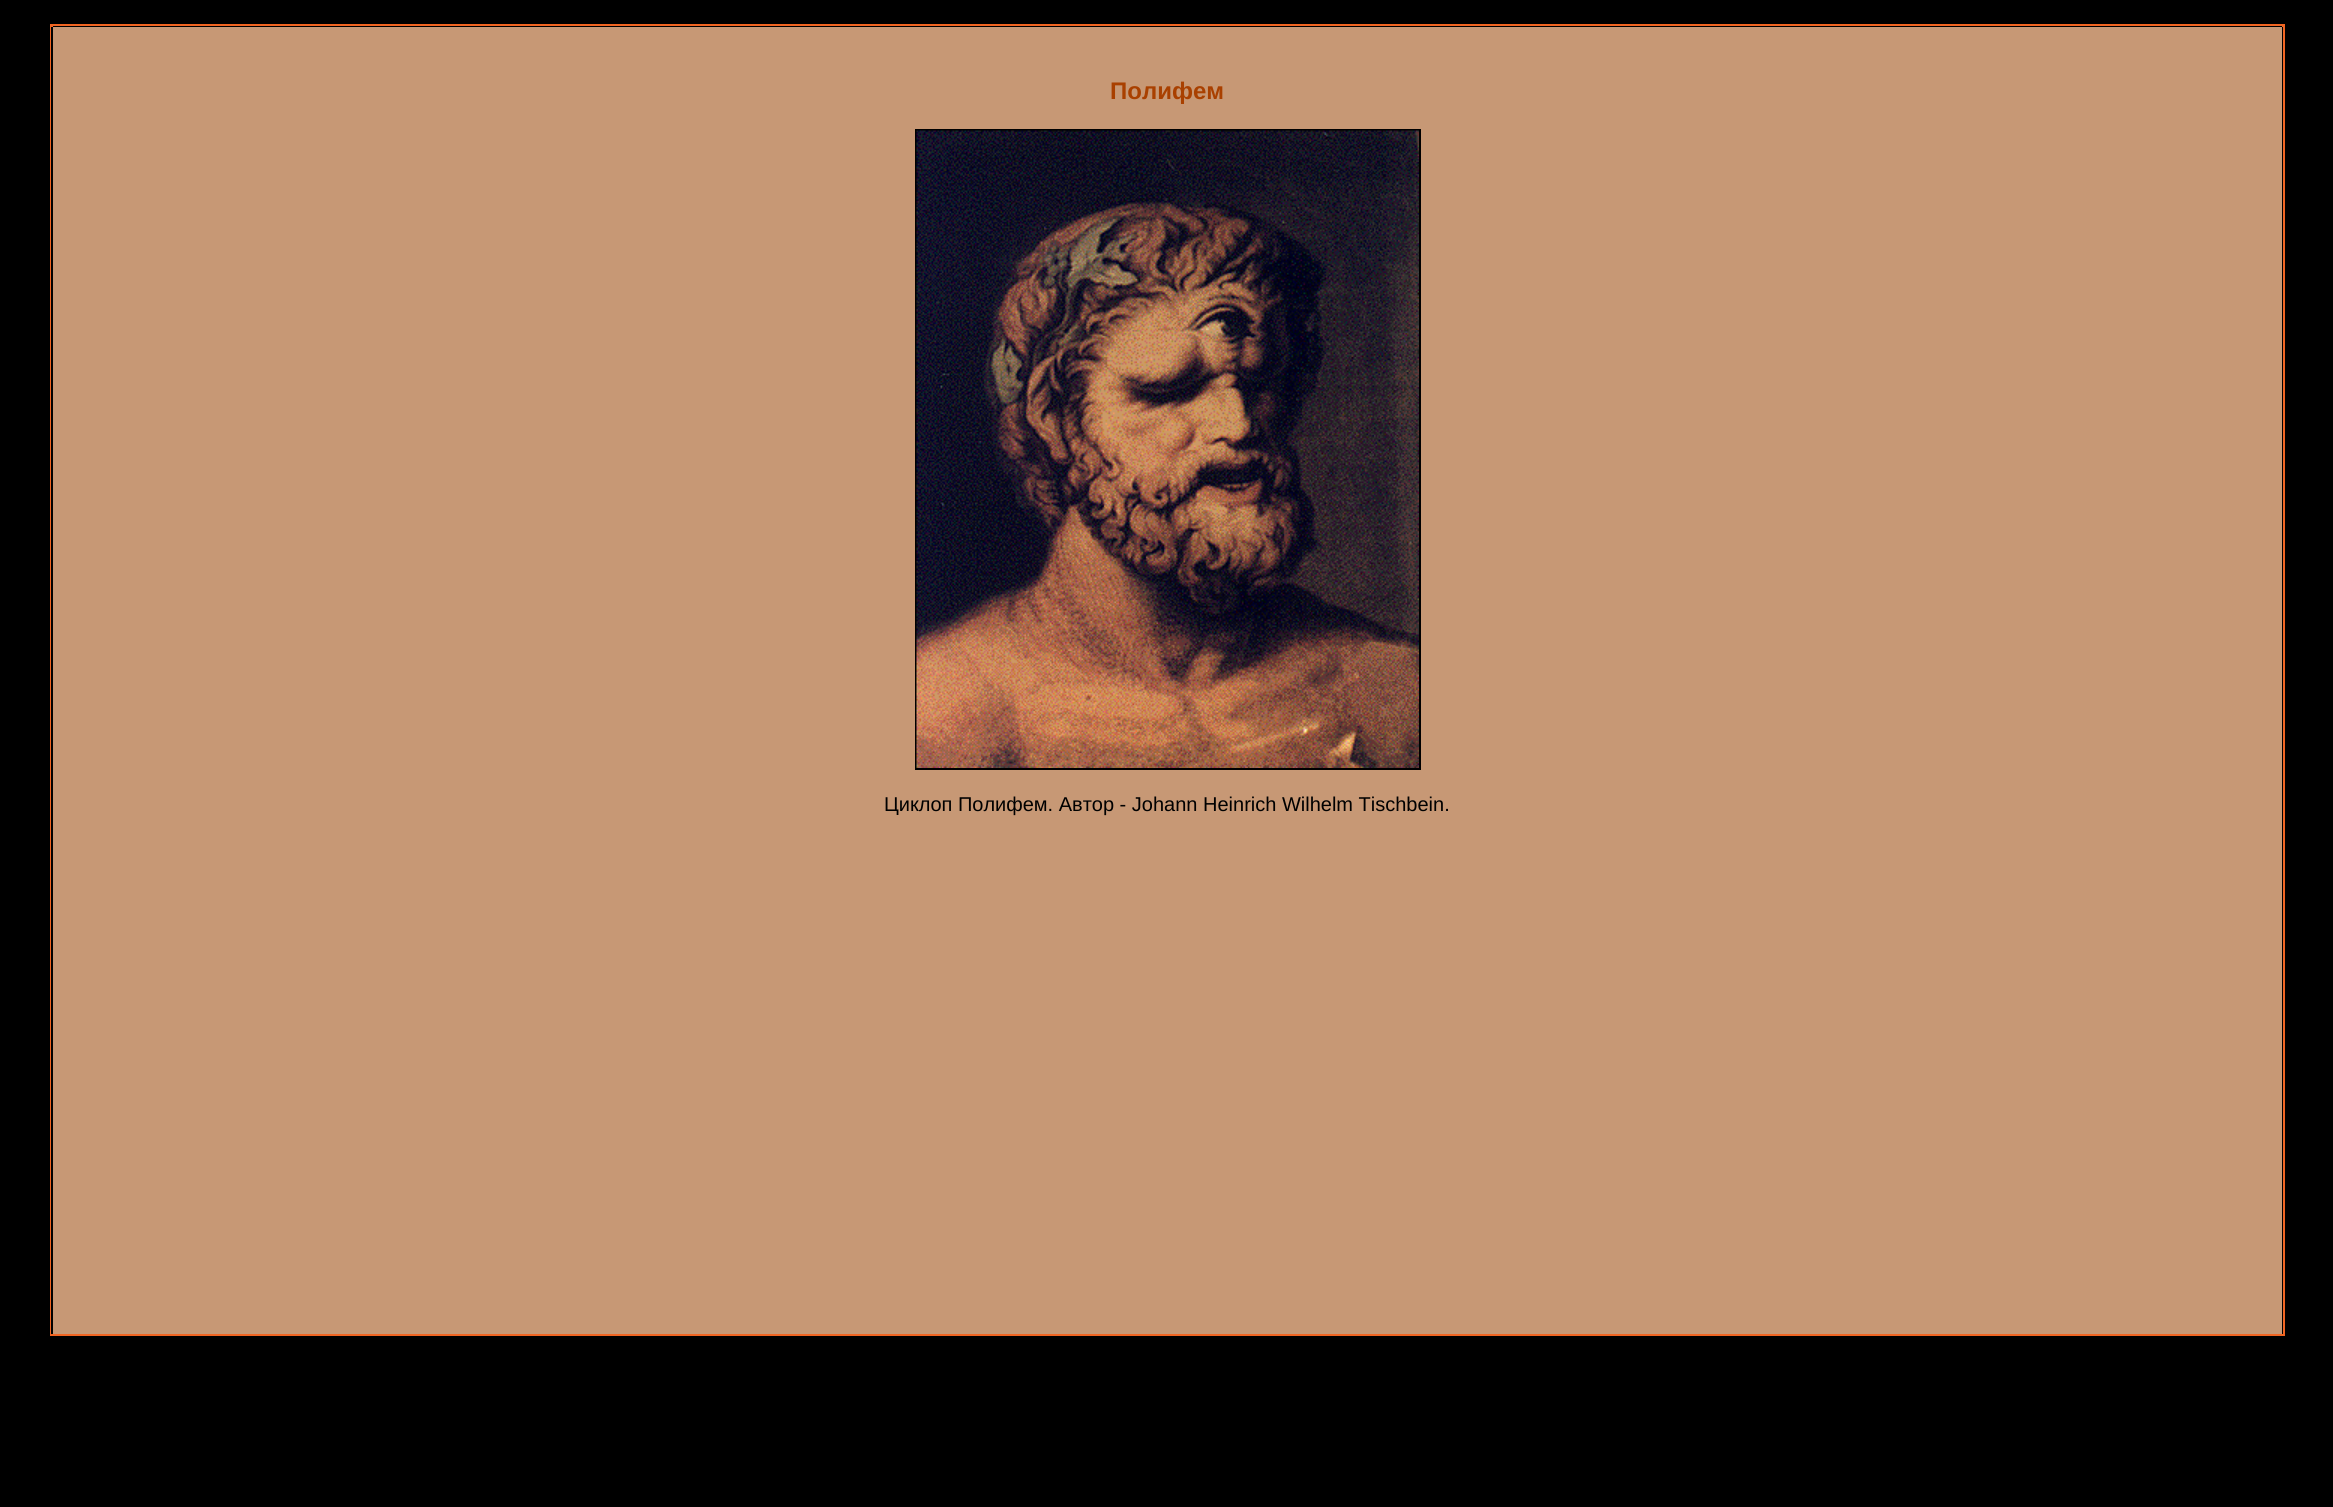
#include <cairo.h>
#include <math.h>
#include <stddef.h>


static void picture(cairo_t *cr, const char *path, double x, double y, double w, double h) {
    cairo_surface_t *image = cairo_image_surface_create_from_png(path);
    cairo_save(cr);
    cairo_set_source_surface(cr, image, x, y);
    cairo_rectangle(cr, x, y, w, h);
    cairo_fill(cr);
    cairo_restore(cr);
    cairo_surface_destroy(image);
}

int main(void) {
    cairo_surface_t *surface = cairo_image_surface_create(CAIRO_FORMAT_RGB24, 2333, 1507);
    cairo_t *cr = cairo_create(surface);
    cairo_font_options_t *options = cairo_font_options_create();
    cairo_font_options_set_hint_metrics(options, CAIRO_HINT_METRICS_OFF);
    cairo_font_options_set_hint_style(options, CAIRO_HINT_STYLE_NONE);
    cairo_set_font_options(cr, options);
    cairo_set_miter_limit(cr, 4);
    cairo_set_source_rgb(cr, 0, 0, 0);
    cairo_paint(cr);
    cairo_set_source_rgb(cr, 0.945, 0.396, 0.133);
    cairo_rectangle(cr, 50, 24, 2235, 2);
    cairo_fill(cr);
    cairo_rectangle(cr, 50, 26, 3, 1);
    cairo_fill(cr);
    cairo_rectangle(cr, 2282, 26, 3, 1);
    cairo_fill(cr);
    cairo_rectangle(cr, 50, 27, 1, 1307);
    cairo_fill(cr);
    cairo_set_source_rgb(cr, 0.78, 0.596, 0.459);
    cairo_rectangle(cr, 53, 27, 2229, 1307);
    cairo_fill(cr);
    cairo_select_font_face(cr, "Liberation Sans", CAIRO_FONT_SLANT_NORMAL, CAIRO_FONT_WEIGHT_BOLD);
    cairo_set_font_size(cr, 24);
    cairo_set_source_rgb(cr, 0.663, 0.251, 0);
    cairo_move_to(cr, 1110, 99);
    cairo_show_text(cr, "Полифем");
    cairo_rectangle(cr, 916, 130, 504, 639);
    cairo_set_source_rgb(cr, 0, 0, 0);
    cairo_stroke(cr);
    picture(cr, "img1.png", 916, 130, 503, 638);
    cairo_select_font_face(cr, "Liberation Sans", CAIRO_FONT_SLANT_NORMAL, CAIRO_FONT_WEIGHT_NORMAL);
    cairo_set_font_size(cr, 20);
    cairo_move_to(cr, 884, 811);
    cairo_show_text(cr, "Циклоп Полифем. Автор - Johann Heinrich Wilhelm Tischbein.");
    cairo_set_source_rgb(cr, 0.945, 0.396, 0.133);
    cairo_rectangle(cr, 2283, 27, 2, 1307);
    cairo_fill(cr);
    cairo_rectangle(cr, 50, 1334, 2235, 2);
    cairo_fill(cr);
    cairo_surface_write_to_png(surface, "page.png");
    cairo_font_options_destroy(options);
    cairo_destroy(cr);
    cairo_surface_destroy(surface);
    return 0;
}
